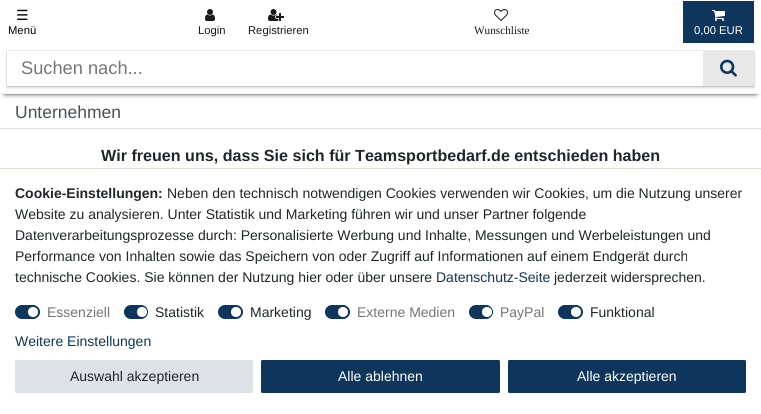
#include <cairo.h>
#include <math.h>
#include <stddef.h>


static void round_rect(cairo_t *cr, double x, double y, double w, double h, double r) {
    cairo_new_sub_path(cr);
    cairo_arc(cr, x + w - r, y + h - r, r, 0, M_PI / 2);
    cairo_arc(cr, x + r, y + h - r, r, M_PI / 2, M_PI);
    cairo_arc(cr, x + r, y + r, r, M_PI, 1.5 * M_PI);
    cairo_arc(cr, x + w - r, y + r, r, 1.5 * M_PI, 2 * M_PI);
    cairo_close_path(cr);
}

static void shadow(cairo_t *cr, double x, double y, double w, double h, double r, double blur, double alpha) {
    cairo_push_group_with_content(cr, CAIRO_CONTENT_ALPHA);
    cairo_set_operator(cr, CAIRO_OPERATOR_SOURCE);
    for (int i = 15; i >= -15 && fmin(w, h) + blur * i / 3 > 0; i -= 2) {
        double e = blur * i / 6;
        cairo_set_source_rgba(cr, 0, 0, 0, alpha * erfc((i - 1) / 8.5) / 2);
        round_rect(cr, x - e, y - e, w + 2 * e, h + 2 * e, fmax(0, fmin(r + e + blur * .6, fmin(w, h) / 2 + e)));
        cairo_fill(cr);
    }
    cairo_pattern_t *soft = cairo_pop_group(cr);
    cairo_mask(cr, soft);
    cairo_pattern_destroy(soft);
}

static void picture(cairo_t *cr, const char *path, double x, double y, double w, double h) {
    cairo_surface_t *image = cairo_image_surface_create_from_png(path);
    cairo_save(cr);
    cairo_set_source_surface(cr, image, x, y);
    cairo_rectangle(cr, x, y, w, h);
    cairo_fill(cr);
    cairo_restore(cr);
    cairo_surface_destroy(image);
}

int main(void) {
    cairo_surface_t *surface = cairo_image_surface_create(CAIRO_FORMAT_RGB24, 761, 414);
    cairo_t *cr = cairo_create(surface);
    cairo_font_options_t *options = cairo_font_options_create();
    cairo_font_options_set_hint_metrics(options, CAIRO_HINT_METRICS_OFF);
    cairo_font_options_set_hint_style(options, CAIRO_HINT_STYLE_NONE);
    cairo_set_font_options(cr, options);
    cairo_set_miter_limit(cr, 4);
    cairo_set_source_rgb(cr, 1, 1, 1);
    cairo_paint(cr);
    cairo_set_source_rgb(cr, 0.2, 0.2, 0.2);
    shadow(cr, 5, 10, 751, 84, 0, 2.5, 1);
    cairo_set_source_rgb(cr, 1, 1, 1);
    cairo_rectangle(cr, 0, 4, 761, 89);
    cairo_fill(cr);
    cairo_set_source_rgb(cr, 0.953, 0.953, 0.953);
    cairo_rectangle(cr, 0, 93, 761, 1);
    cairo_fill(cr);
    cairo_select_font_face(cr, "DejaVu Sans", CAIRO_FONT_SLANT_NORMAL, CAIRO_FONT_WEIGHT_NORMAL);
    cairo_set_font_size(cr, 14);
    cairo_set_source_rgb(cr, 0, 0, 0);
    cairo_move_to(cr, 16, 20);
    cairo_show_text(cr, "☰");
    cairo_select_font_face(cr, "Liberation Sans", CAIRO_FONT_SLANT_NORMAL, CAIRO_FONT_WEIGHT_NORMAL);
    cairo_set_font_size(cr, 11.25);
    cairo_move_to(cr, 8, 34);
    cairo_show_text(cr, "Menü");
    picture(cr, "img1.png", 205, 9, 10, 12);
    cairo_set_source_rgb(cr, 0.098, 0.098, 0.098);
    cairo_move_to(cr, 198, 34);
    cairo_show_text(cr, "Login");
    picture(cr, "img2.png", 268, 9, 16, 12);
    cairo_move_to(cr, 248, 34);
    cairo_show_text(cr, "Registrieren");
    picture(cr, "img3.png", 494, 9, 14, 12);
    cairo_select_font_face(cr, "Liberation Serif", CAIRO_FONT_SLANT_NORMAL, CAIRO_FONT_WEIGHT_NORMAL);
    cairo_move_to(cr, 474, 34);
    cairo_show_text(cr, "Wunschliste");
    cairo_set_source_rgb(cr, 0.055, 0.208, 0.361);
    cairo_rectangle(cr, 683, 1, 71, 42);
    cairo_fill(cr);
    picture(cr, "img4.png", 712, 10, 13, 11);
    cairo_select_font_face(cr, "Liberation Sans", CAIRO_FONT_SLANT_NORMAL, CAIRO_FONT_WEIGHT_NORMAL);
    cairo_set_source_rgb(cr, 1, 1, 1);
    cairo_move_to(cr, 694, 34);
    cairo_show_text(cr, "0,00 EUR");
    cairo_rectangle(cr, 6.5, 50.5, 748, 36);
    cairo_set_source_rgb(cr, 0.922, 0.922, 0.922);
    cairo_set_line_width(cr, 1);
    cairo_stroke(cr);
    cairo_save(cr);
    cairo_set_fill_rule(cr, CAIRO_FILL_RULE_EVEN_ODD);
    cairo_new_path(cr);
    cairo_move_to(cr, 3, 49);
    cairo_line_to(cr, 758, 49);
    cairo_line_to(cr, 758, 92);
    cairo_line_to(cr, 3, 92);
    cairo_close_path(cr);
    cairo_move_to(cr, 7, 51);
    cairo_line_to(cr, 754, 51);
    cairo_line_to(cr, 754, 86);
    cairo_line_to(cr, 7, 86);
    cairo_close_path(cr);
    cairo_clip(cr);
    cairo_set_source_rgb(cr, 0, 0, 0);
    shadow(cr, 7, 53, 747, 35, 0, 1, 0.16);
    cairo_restore(cr);
    cairo_set_font_size(cr, 18.25);
    cairo_set_source_rgb(cr, 0.459, 0.459, 0.459);
    cairo_move_to(cr, 21, 74);
    cairo_show_text(cr, "Suchen nach...");
    cairo_set_source_rgb(cr, 0.91, 0.91, 0.91);
    cairo_rectangle(cr, 703, 51, 51, 35);
    cairo_fill(cr);
    picture(cr, "img5.png", 720, 59, 17, 18);
    cairo_set_font_size(cr, 17.5);
    cairo_set_source_rgb(cr, 0.286, 0.314, 0.341);
    cairo_move_to(cr, 15, 118);
    cairo_show_text(cr, "Unternehmen");
    cairo_set_source_rgb(cr, 0.871, 0.886, 0.902);
    cairo_rectangle(cr, 0, 128, 761, 1);
    cairo_fill(cr);
    cairo_set_source_rgb(cr, 0.89, 0.878, 0.851);
    cairo_rectangle(cr, 0, 168, 761, 1);
    cairo_fill(cr);
    cairo_select_font_face(cr, "Liberation Sans", CAIRO_FONT_SLANT_NORMAL, CAIRO_FONT_WEIGHT_BOLD);
    cairo_set_font_size(cr, 16.1);
    cairo_set_source_rgb(cr, 0.129, 0.145, 0.161);
    cairo_move_to(cr, 101, 161);
    cairo_show_text(cr, "Wir freuen uns, dass Sie sich für Teamsportbedarf.de entschieden haben");
    cairo_set_font_size(cr, 14);
    cairo_move_to(cr, 15, 198);
    cairo_show_text(cr, "Cookie-Einstellungen:");
    cairo_select_font_face(cr, "Liberation Sans", CAIRO_FONT_SLANT_NORMAL, CAIRO_FONT_WEIGHT_NORMAL);
    cairo_move_to(cr, 167, 198);
    cairo_show_text(cr, "Neben den technisch notwendigen Cookies verwenden wir Cookies, um die Nutzung unserer");
    cairo_move_to(cr, 15, 219);
    cairo_show_text(cr, "Website zu analysieren. Unter Statistik und Marketing führen wir und unser Partner folgende");
    cairo_move_to(cr, 15, 240);
    cairo_show_text(cr, "Datenverarbeitungsprozesse durch: Personalisierte Werbung und Inhalte, Messungen und Werbeleistungen und");
    cairo_move_to(cr, 15, 261);
    cairo_show_text(cr, "Performance von Inhalten sowie das Speichern von oder Zugriff auf Informationen auf einem Endgerät durch");
    cairo_move_to(cr, 15, 282);
    cairo_show_text(cr, "technische Cookies. Sie können der Nutzung hier oder über unsere");
    cairo_set_source_rgb(cr, 0.055, 0.208, 0.361);
    cairo_move_to(cr, 436, 282);
    cairo_show_text(cr, "Datenschutz-Seite");
    cairo_set_source_rgb(cr, 0.129, 0.145, 0.161);
    cairo_move_to(cr, 554, 282);
    cairo_show_text(cr, "jederzeit widersprechen.");
    cairo_set_source_rgb(cr, 0.055, 0.208, 0.361);
    round_rect(cr, 15.5, 305.5, 24, 13, 6.5);
    cairo_fill_preserve(cr);
    cairo_stroke(cr);
    cairo_set_source_rgb(cr, 0.459, 0.459, 0.459);
    cairo_move_to(cr, 47, 317);
    cairo_show_text(cr, "Essenziell");
    cairo_set_source_rgb(cr, 1, 1, 1);
    cairo_new_path(cr);
    cairo_arc(cr, 33, 312, 5, 0, 2 * M_PI);
    cairo_fill(cr);
    cairo_set_source_rgb(cr, 0.055, 0.208, 0.361);
    round_rect(cr, 124.5, 305.5, 23, 13, 6.5);
    cairo_fill_preserve(cr);
    cairo_stroke(cr);
    cairo_set_source_rgb(cr, 0.129, 0.145, 0.161);
    cairo_move_to(cr, 155, 317);
    cairo_show_text(cr, "Statistik");
    cairo_set_source_rgb(cr, 1, 1, 1);
    cairo_new_path(cr);
    cairo_arc(cr, 142, 312, 5, 0, 2 * M_PI);
    cairo_fill(cr);
    cairo_set_source_rgb(cr, 0.055, 0.208, 0.361);
    round_rect(cr, 218.5, 305.5, 24, 13, 6.5);
    cairo_fill_preserve(cr);
    cairo_stroke(cr);
    cairo_set_source_rgb(cr, 0.129, 0.145, 0.161);
    cairo_move_to(cr, 250, 317);
    cairo_show_text(cr, "Marketing");
    cairo_set_source_rgb(cr, 1, 1, 1);
    cairo_new_path(cr);
    cairo_arc(cr, 236, 312, 5, 0, 2 * M_PI);
    cairo_fill(cr);
    cairo_set_source_rgb(cr, 0.055, 0.208, 0.361);
    round_rect(cr, 325.5, 305.5, 24, 13, 6.5);
    cairo_fill_preserve(cr);
    cairo_stroke(cr);
    cairo_set_source_rgb(cr, 0.459, 0.459, 0.459);
    cairo_move_to(cr, 357, 317);
    cairo_show_text(cr, "Externe Medien");
    cairo_set_source_rgb(cr, 1, 1, 1);
    cairo_new_path(cr);
    cairo_arc(cr, 343, 312, 5, 0, 2 * M_PI);
    cairo_fill(cr);
    cairo_set_source_rgb(cr, 0.055, 0.208, 0.361);
    round_rect(cr, 469.5, 305.5, 23, 13, 6.5);
    cairo_fill_preserve(cr);
    cairo_stroke(cr);
    cairo_set_source_rgb(cr, 0.459, 0.459, 0.459);
    cairo_move_to(cr, 500, 317);
    cairo_show_text(cr, "PayPal");
    cairo_set_source_rgb(cr, 1, 1, 1);
    cairo_new_path(cr);
    cairo_arc(cr, 487, 312, 5, 0, 2 * M_PI);
    cairo_fill(cr);
    cairo_set_source_rgb(cr, 0.055, 0.208, 0.361);
    round_rect(cr, 558.5, 305.5, 24, 13, 6.5);
    cairo_fill_preserve(cr);
    cairo_stroke(cr);
    cairo_set_source_rgb(cr, 0.129, 0.145, 0.161);
    cairo_move_to(cr, 590, 317);
    cairo_show_text(cr, "Funktional");
    cairo_set_source_rgb(cr, 1, 1, 1);
    cairo_new_path(cr);
    cairo_arc(cr, 576, 312, 5, 0, 2 * M_PI);
    cairo_fill(cr);
    cairo_set_source_rgb(cr, 0.055, 0.208, 0.361);
    cairo_move_to(cr, 15, 346);
    cairo_show_text(cr, "Weitere Einstellungen");
    cairo_set_source_rgb(cr, 0.871, 0.886, 0.902);
    round_rect(cr, 15.5, 360.5, 237, 32, 1);
    cairo_fill_preserve(cr);
    cairo_stroke(cr);
    cairo_set_source_rgb(cr, 0.129, 0.145, 0.161);
    cairo_move_to(cr, 70, 381);
    cairo_show_text(cr, "Auswahl akzeptieren");
    cairo_set_source_rgb(cr, 0.055, 0.208, 0.361);
    round_rect(cr, 261.5, 360.5, 238, 32, 1);
    cairo_fill_preserve(cr);
    cairo_stroke(cr);
    cairo_set_source_rgb(cr, 1, 1, 1);
    cairo_move_to(cr, 338, 381);
    cairo_show_text(cr, "Alle ablehnen");
    cairo_set_source_rgb(cr, 0.055, 0.208, 0.361);
    round_rect(cr, 508.5, 360.5, 237, 32, 1);
    cairo_fill_preserve(cr);
    cairo_stroke(cr);
    cairo_set_source_rgb(cr, 1, 1, 1);
    cairo_move_to(cr, 577, 381);
    cairo_show_text(cr, "Alle akzeptieren");
    cairo_surface_write_to_png(surface, "page.png");
    cairo_font_options_destroy(options);
    cairo_destroy(cr);
    cairo_surface_destroy(surface);
    return 0;
}
